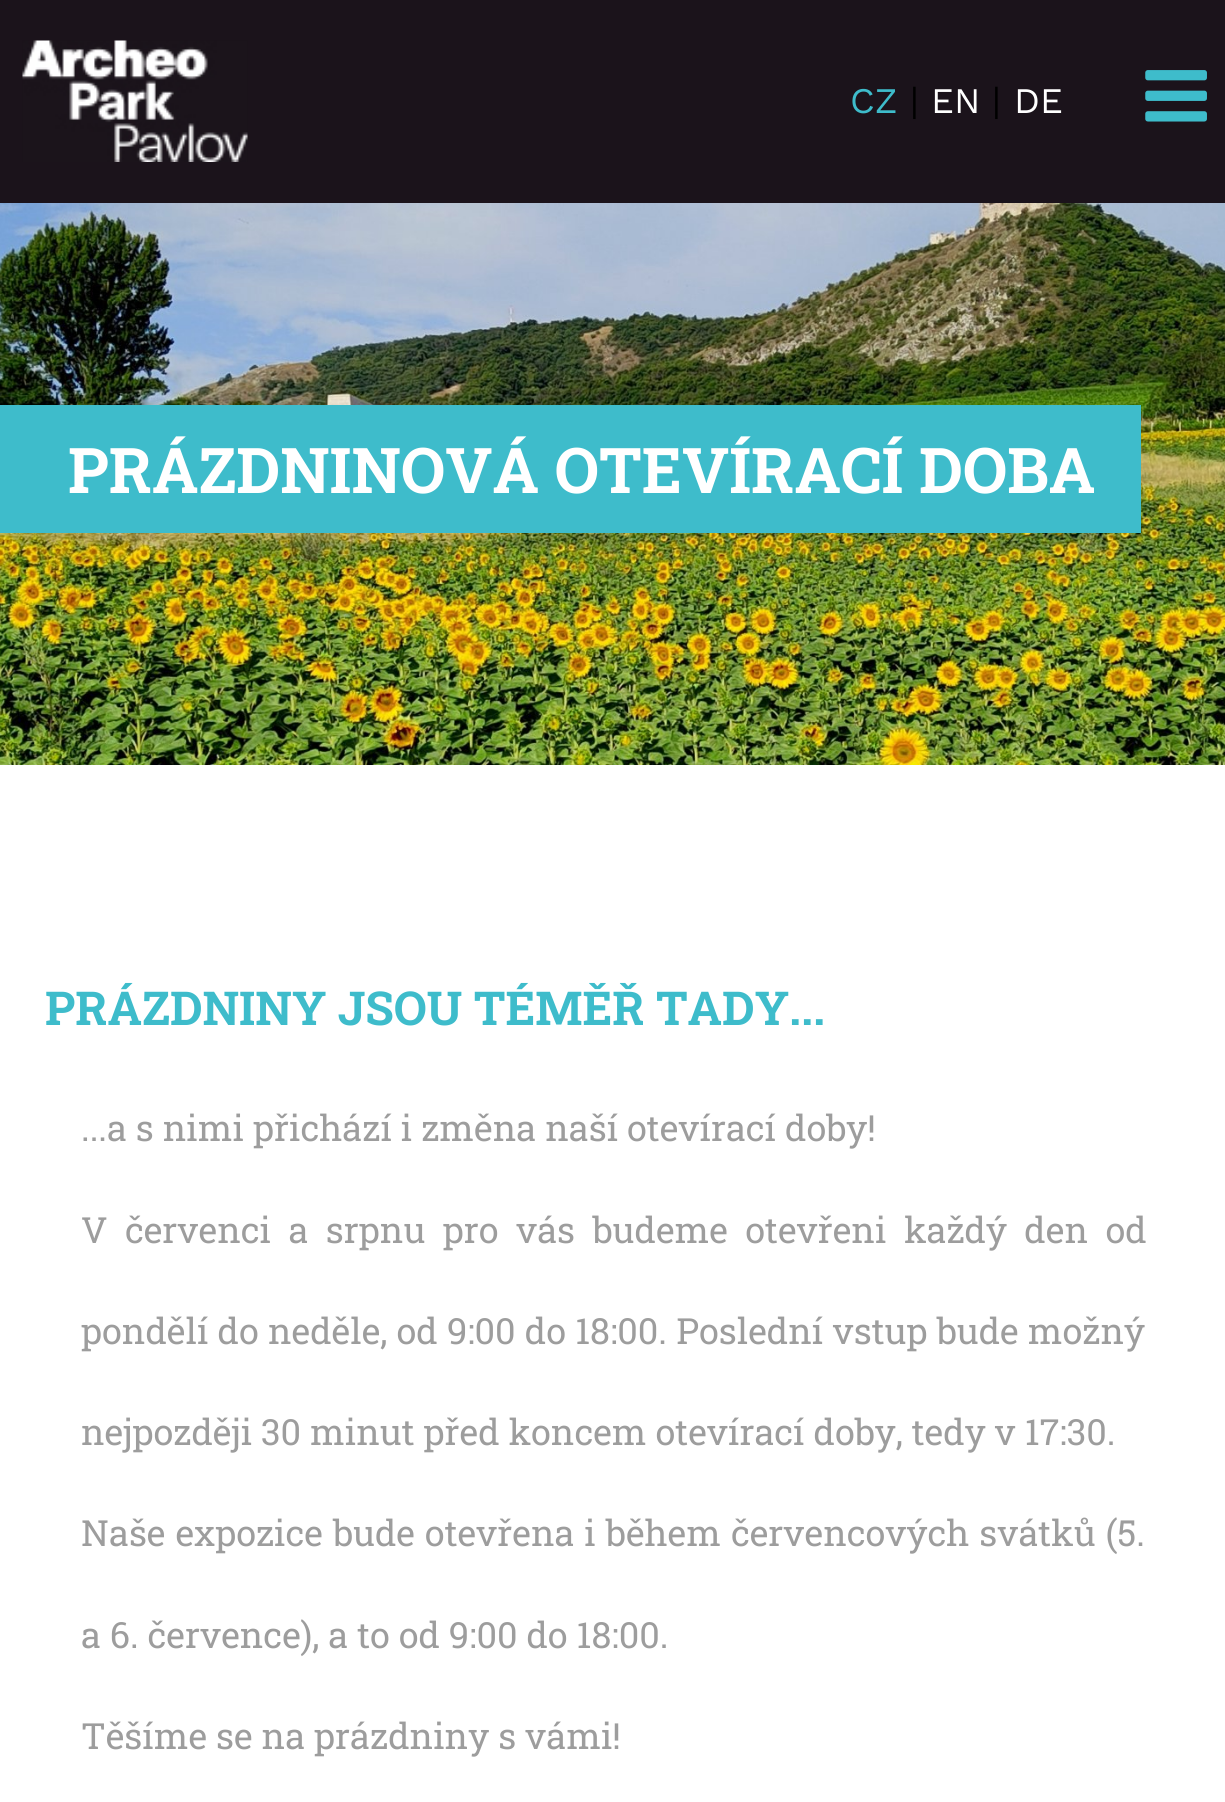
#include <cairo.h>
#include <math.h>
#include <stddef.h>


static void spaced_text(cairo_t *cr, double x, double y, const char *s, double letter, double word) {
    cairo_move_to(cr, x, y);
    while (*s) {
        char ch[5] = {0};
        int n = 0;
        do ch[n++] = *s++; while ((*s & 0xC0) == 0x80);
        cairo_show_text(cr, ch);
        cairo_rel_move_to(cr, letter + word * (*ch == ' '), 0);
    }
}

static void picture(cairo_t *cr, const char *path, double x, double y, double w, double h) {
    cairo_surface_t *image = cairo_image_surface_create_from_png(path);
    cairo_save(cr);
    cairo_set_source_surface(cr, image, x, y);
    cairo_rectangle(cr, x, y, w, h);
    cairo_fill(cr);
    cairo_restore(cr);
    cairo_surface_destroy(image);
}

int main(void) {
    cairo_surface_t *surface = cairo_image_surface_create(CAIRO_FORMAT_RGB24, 1225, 1802);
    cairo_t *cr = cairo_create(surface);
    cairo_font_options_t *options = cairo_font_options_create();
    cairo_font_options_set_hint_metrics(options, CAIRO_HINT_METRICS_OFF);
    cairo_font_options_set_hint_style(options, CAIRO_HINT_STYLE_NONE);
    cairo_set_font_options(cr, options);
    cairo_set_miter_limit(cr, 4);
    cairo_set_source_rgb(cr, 1, 1, 1);
    cairo_paint(cr);
    cairo_set_source_rgb(cr, 0.106, 0.078, 0.106);
    cairo_rectangle(cr, 0, 0, 1225, 203);
    cairo_fill(cr);
    picture(cr, "img1.png", 22, 40, 226, 122);
    cairo_select_font_face(cr, "Work Sans", CAIRO_FONT_SLANT_NORMAL, CAIRO_FONT_WEIGHT_NORMAL);
    cairo_set_font_size(cr, 36);
    cairo_set_source_rgb(cr, 0.243, 0.737, 0.796);
    cairo_move_to(cr, 850, 113);
    cairo_show_text(cr, "CZ");
    cairo_set_source_rgb(cr, 0, 0, 0);
    cairo_move_to(cr, 910, 113);
    cairo_show_text(cr, "|");
    cairo_set_source_rgb(cr, 1, 1, 1);
    cairo_move_to(cr, 931, 113);
    cairo_show_text(cr, "EN");
    cairo_set_source_rgb(cr, 0, 0, 0);
    cairo_move_to(cr, 992, 113);
    cairo_show_text(cr, "|");
    cairo_set_source_rgb(cr, 1, 1, 1);
    cairo_move_to(cr, 1014, 113);
    cairo_show_text(cr, "DE");
    picture(cr, "img2.png", 1145, 70, 62, 52);
    picture(cr, "img3.png", 0, 203, 1225, 562);
    cairo_set_source_rgb(cr, 0.243, 0.737, 0.796);
    cairo_rectangle(cr, 0, 405, 1141, 128);
    cairo_fill(cr);
    cairo_select_font_face(cr, "Roboto Slab", CAIRO_FONT_SLANT_NORMAL, CAIRO_FONT_WEIGHT_BOLD);
    cairo_set_font_size(cr, 63);
    cairo_set_source_rgb(cr, 1, 1, 1);
    cairo_move_to(cr, 68, 493);
    cairo_show_text(cr, "PRÁZDNINOVÁ OTEVÍRACÍ DOBA");
    cairo_set_font_size(cr, 46.75);
    cairo_set_source_rgb(cr, 0.243, 0.737, 0.796);
    cairo_move_to(cr, 45, 1025);
    cairo_show_text(cr, "PRÁZDNINY JSOU TÉMĚŘ TADY...");
    cairo_select_font_face(cr, "Roboto Slab", CAIRO_FONT_SLANT_NORMAL, CAIRO_FONT_WEIGHT_NORMAL);
    cairo_set_font_size(cr, 36);
    cairo_set_source_rgb(cr, 0.616, 0.616, 0.616);
    cairo_move_to(cr, 81, 1141);
    cairo_show_text(cr, "...a s nimi přichází i změna naší otevírací doby!");
    spaced_text(cr, 81, 1243, "V červenci a srpnu pro vás budeme otevřeni každý den od", 0, 8.5);
    spaced_text(cr, 81, 1344, "pondělí do neděle, od 9:00 do 18:00. Poslední vstup bude možný", 0, 0.25);
    cairo_move_to(cr, 81, 1445);
    cairo_show_text(cr, "nejpozději 30 minut před koncem otevírací doby, tedy v 17:30.");
    spaced_text(cr, 81, 1546, "Naše expozice bude otevřena i během červencových svátků (5.", 0, 1);
    cairo_move_to(cr, 81, 1648);
    cairo_show_text(cr, "a 6. července), a to od 9:00 do 18:00.");
    cairo_move_to(cr, 81, 1749);
    cairo_show_text(cr, "Těšíme se na prázdniny s vámi!");
    cairo_surface_write_to_png(surface, "page.png");
    cairo_font_options_destroy(options);
    cairo_destroy(cr);
    cairo_surface_destroy(surface);
    return 0;
}
